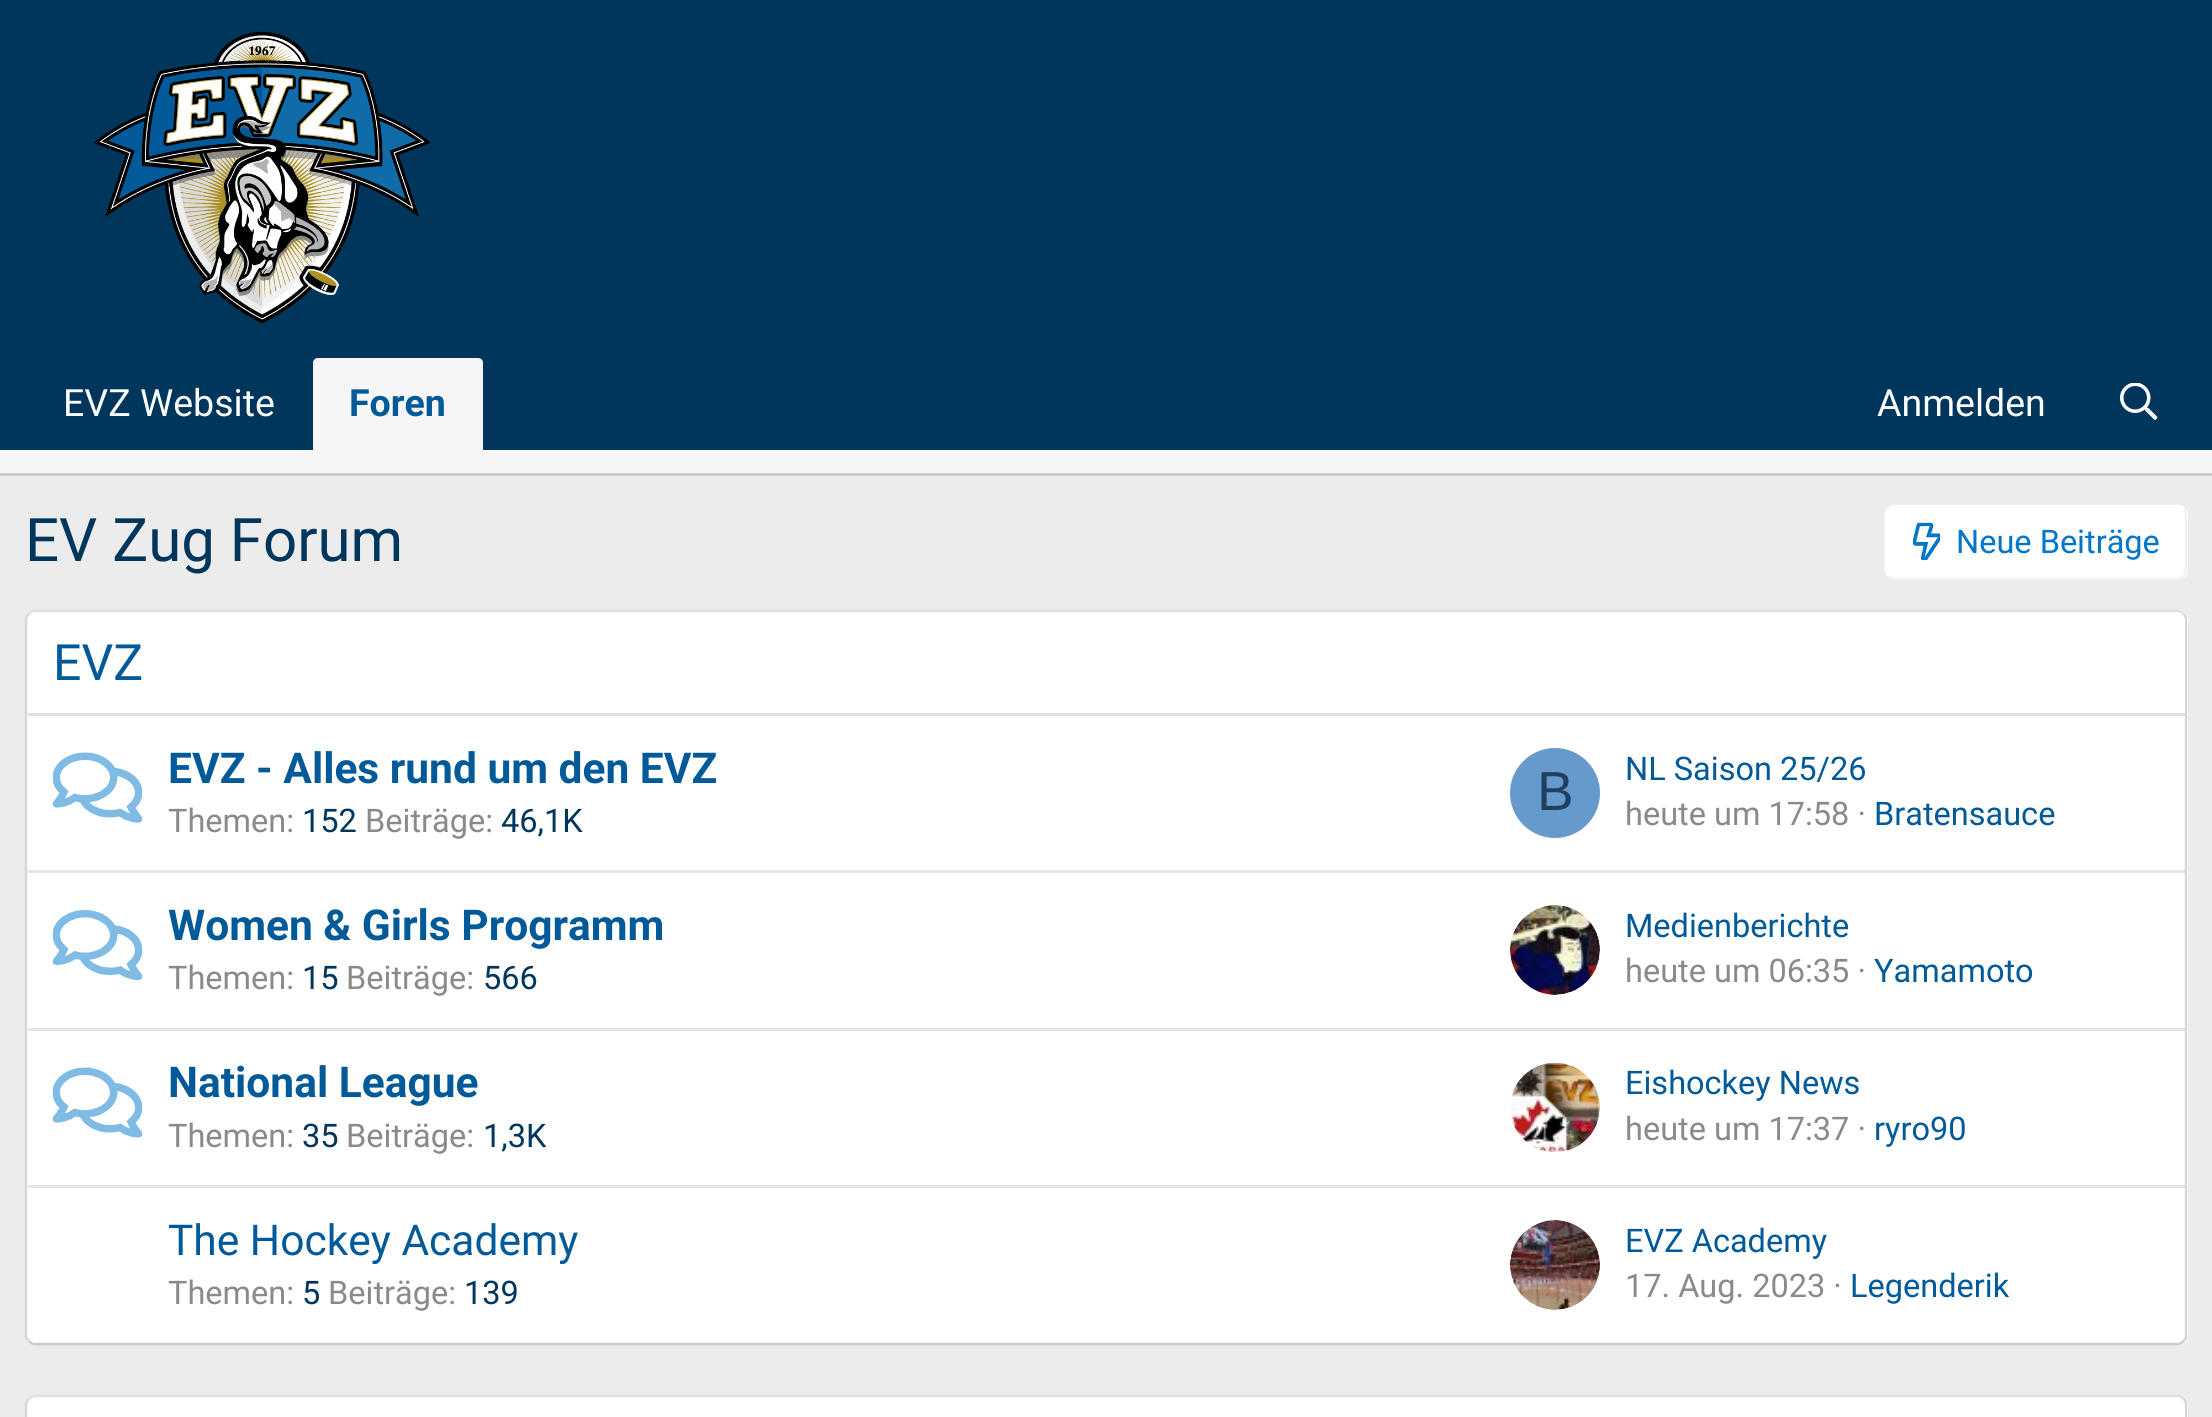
#include <cairo.h>
#include <math.h>
#include <stddef.h>


static void round_rect(cairo_t *cr, double x, double y, double w, double h, double r) {
    cairo_new_sub_path(cr);
    cairo_arc(cr, x + w - r, y + h - r, r, 0, M_PI / 2);
    cairo_arc(cr, x + r, y + h - r, r, M_PI / 2, M_PI);
    cairo_arc(cr, x + r, y + r, r, M_PI, 1.5 * M_PI);
    cairo_arc(cr, x + w - r, y + r, r, 1.5 * M_PI, 2 * M_PI);
    cairo_close_path(cr);
}

static void picture(cairo_t *cr, const char *path, double x, double y, double w, double h) {
    cairo_surface_t *image = cairo_image_surface_create_from_png(path);
    cairo_save(cr);
    cairo_set_source_surface(cr, image, x, y);
    cairo_rectangle(cr, x, y, w, h);
    cairo_fill(cr);
    cairo_restore(cr);
    cairo_surface_destroy(image);
}

int main(void) {
    cairo_surface_t *surface = cairo_image_surface_create(CAIRO_FORMAT_RGB24, 2212, 1417);
    cairo_t *cr = cairo_create(surface);
    cairo_font_options_t *options = cairo_font_options_create();
    cairo_font_options_set_hint_metrics(options, CAIRO_HINT_METRICS_OFF);
    cairo_font_options_set_hint_style(options, CAIRO_HINT_STYLE_NONE);
    cairo_set_font_options(cr, options);
    cairo_set_miter_limit(cr, 4);
    cairo_set_source_rgb(cr, 0.922, 0.922, 0.922);
    cairo_paint(cr);
    cairo_set_source_rgb(cr, 0, 0.208, 0.361);
    cairo_rectangle(cr, 0, 0, 2212, 450);
    cairo_fill(cr);
    picture(cr, "img1.png", 93, 31, 338, 293);
    cairo_select_font_face(cr, "Roboto", CAIRO_FONT_SLANT_NORMAL, CAIRO_FONT_WEIGHT_NORMAL);
    cairo_set_font_size(cr, 37.5);
    cairo_set_source_rgb(cr, 1, 1, 1);
    cairo_move_to(cr, 63, 416);
    cairo_show_text(cr, "EVZ Website");
    cairo_set_source_rgb(cr, 0.961, 0.961, 0.961);
    cairo_new_path(cr);
    cairo_move_to(cr, 318, 358);
    cairo_line_to(cr, 478, 358);
    cairo_curve_to(cr, 481, 358, 483, 360, 483, 363);
    cairo_line_to(cr, 483, 450);
    cairo_line_to(cr, 313, 450);
    cairo_line_to(cr, 313, 363);
    cairo_curve_to(cr, 313, 360, 315, 358, 318, 358);
    cairo_close_path(cr);
    cairo_fill(cr);
    cairo_select_font_face(cr, "Roboto", CAIRO_FONT_SLANT_NORMAL, CAIRO_FONT_WEIGHT_BOLD);
    cairo_set_source_rgb(cr, 0, 0.353, 0.604);
    cairo_move_to(cr, 349, 416);
    cairo_show_text(cr, "Foren");
    cairo_select_font_face(cr, "Roboto", CAIRO_FONT_SLANT_NORMAL, CAIRO_FONT_WEIGHT_NORMAL);
    cairo_set_source_rgb(cr, 1, 1, 1);
    cairo_move_to(cr, 1877, 416);
    cairo_show_text(cr, "Anmelden");
    picture(cr, "img2.png", 2120, 383, 38, 37);
    cairo_set_source_rgb(cr, 0.961, 0.961, 0.961);
    cairo_rectangle(cr, 0, 450, 2212, 23);
    cairo_fill(cr);
    cairo_set_source_rgb(cr, 0.8, 0.8, 0.8);
    cairo_rectangle(cr, 0, 473, 2212, 3);
    cairo_fill(cr);
    cairo_set_font_size(cr, 60);
    cairo_set_source_rgb(cr, 0, 0.208, 0.361);
    cairo_move_to(cr, 25, 561);
    cairo_show_text(cr, "EV Zug Forum");
    cairo_set_source_rgb(cr, 1, 1, 1);
    round_rect(cr, 1885, 505, 303, 75, 10);
    cairo_fill(cr);
    cairo_new_path(cr);
    cairo_move_to(cr, 2183.5, 509);
    cairo_curve_to(cr, 2185.5, 510.5, 2186, 512.5, 2186, 515);
    cairo_line_to(cr, 2186, 570);
    cairo_curve_to(cr, 2186, 572.5, 2185.5, 574.5, 2183.5, 576);
    cairo_curve_to(cr, 2182, 578, 2180, 579, 2177.5, 579);
    cairo_line_to(cr, 1895, 579);
    cairo_curve_to(cr, 1892.5, 579, 1890.5, 578, 1889, 576);
    cairo_set_source_rgb(cr, 0.949, 0.949, 0.949);
    cairo_set_line_width(cr, 2.5);
    cairo_stroke(cr);
    cairo_new_path(cr);
    cairo_move_to(cr, 1889, 576);
    cairo_curve_to(cr, 1887, 574.5, 1886, 572.5, 1886, 570);
    cairo_line_to(cr, 1886, 515);
    cairo_curve_to(cr, 1886, 512.5, 1887, 510.5, 1889, 509);
    cairo_curve_to(cr, 1890.5, 507, 1892.5, 506, 1895, 506);
    cairo_line_to(cr, 2177.5, 506);
    cairo_curve_to(cr, 2180, 506, 2182, 507, 2183.5, 509);
    cairo_set_source_rgb(cr, 1, 1, 1);
    cairo_stroke(cr);
    picture(cr, "img3.png", 1912, 522, 28, 38);
    cairo_set_font_size(cr, 32.5);
    cairo_set_source_rgb(cr, 0, 0.463, 0.796);
    cairo_move_to(cr, 1956, 553);
    cairo_show_text(cr, "Neue Beiträge");
    cairo_set_source_rgb(cr, 1, 1, 1);
    round_rect(cr, 25, 610, 2163, 735, 10);
    cairo_fill(cr);
    cairo_new_path(cr);
    cairo_move_to(cr, 29, 614);
    cairo_curve_to(cr, 30.5, 612, 32.5, 611, 35, 611);
    cairo_line_to(cr, 2177.5, 611);
    cairo_curve_to(cr, 2180, 611, 2182, 612, 2183.5, 614);
    cairo_set_source_rgb(cr, 0.878, 0.878, 0.878);
    cairo_stroke(cr);
    cairo_new_path(cr);
    cairo_move_to(cr, 2183.5, 614);
    cairo_curve_to(cr, 2185.5, 615.5, 2186, 617.5, 2186, 620);
    cairo_line_to(cr, 2186, 1335);
    cairo_curve_to(cr, 2186, 1337.5, 2185.5, 1339.5, 2183.5, 1341);
    cairo_set_source_rgb(cr, 0.839, 0.839, 0.839);
    cairo_stroke(cr);
    cairo_new_path(cr);
    cairo_move_to(cr, 2183.5, 1341);
    cairo_curve_to(cr, 2182, 1343, 2180, 1344, 2177.5, 1344);
    cairo_line_to(cr, 35, 1344);
    cairo_curve_to(cr, 32.5, 1344, 30.5, 1343, 29, 1341);
    cairo_set_source_rgb(cr, 0.8, 0.8, 0.8);
    cairo_stroke(cr);
    cairo_new_path(cr);
    cairo_move_to(cr, 29, 1341);
    cairo_curve_to(cr, 27, 1339.5, 26, 1337.5, 26, 1335);
    cairo_line_to(cr, 26, 620);
    cairo_curve_to(cr, 26, 617.5, 27, 615.5, 29, 614);
    cairo_set_source_rgb(cr, 0.839, 0.839, 0.839);
    cairo_stroke(cr);
    cairo_set_source_rgb(cr, 1, 1, 1);
    cairo_new_path(cr);
    cairo_move_to(cr, 36, 613);
    cairo_line_to(cr, 2177, 613);
    cairo_curve_to(cr, 2181.5, 613, 2185, 616.5, 2185, 621);
    cairo_line_to(cr, 2185, 715);
    cairo_line_to(cr, 28, 715);
    cairo_line_to(cr, 28, 621);
    cairo_curve_to(cr, 28, 616.5, 31.5, 613, 36, 613);
    cairo_close_path(cr);
    cairo_fill(cr);
    cairo_set_source_rgb(cr, 0.878, 0.878, 0.878);
    cairo_rectangle(cr, 28, 713, 2157, 3);
    cairo_fill(cr);
    cairo_set_font_size(cr, 50);
    cairo_set_source_rgb(cr, 0, 0.353, 0.604);
    cairo_move_to(cr, 53, 680);
    cairo_show_text(cr, "EVZ");
    picture(cr, "img4.png", 52, 752, 91, 71);
    cairo_select_font_face(cr, "Roboto", CAIRO_FONT_SLANT_NORMAL, CAIRO_FONT_WEIGHT_BOLD);
    cairo_set_font_size(cr, 42.5);
    cairo_move_to(cr, 168, 783);
    cairo_show_text(cr, "EVZ - Alles rund um den EVZ");
    cairo_select_font_face(cr, "Roboto", CAIRO_FONT_SLANT_NORMAL, CAIRO_FONT_WEIGHT_NORMAL);
    cairo_set_font_size(cr, 32.5);
    cairo_set_source_rgb(cr, 0.541, 0.541, 0.541);
    cairo_move_to(cr, 168, 832);
    cairo_show_text(cr, "Themen:");
    cairo_set_source_rgb(cr, 0, 0.208, 0.361);
    cairo_move_to(cr, 302, 832);
    cairo_show_text(cr, "152");
    cairo_set_source_rgb(cr, 0.541, 0.541, 0.541);
    cairo_move_to(cr, 365, 832);
    cairo_show_text(cr, "Beiträge:");
    cairo_set_source_rgb(cr, 0, 0.208, 0.361);
    cairo_move_to(cr, 501, 832);
    cairo_show_text(cr, "46,1K");
    cairo_set_source_rgb(cr, 0, 0.353, 0.604);
    cairo_move_to(cr, 1625, 780);
    cairo_show_text(cr, "NL Saison 25/26");
    cairo_set_source_rgb(cr, 0.4, 0.6, 0.8);
    cairo_new_path(cr);
    cairo_arc(cr, 1555, 793, 45, 0, 2 * M_PI);
    cairo_fill(cr);
    cairo_select_font_face(cr, "Liberation Sans", CAIRO_FONT_SLANT_NORMAL, CAIRO_FONT_WEIGHT_NORMAL);
    cairo_set_font_size(cr, 55);
    cairo_set_source_rgb(cr, 0.125, 0.251, 0.376);
    cairo_move_to(cr, 1537, 810);
    cairo_show_text(cr, "B");
    cairo_select_font_face(cr, "Roboto", CAIRO_FONT_SLANT_NORMAL, CAIRO_FONT_WEIGHT_NORMAL);
    cairo_set_font_size(cr, 32.5);
    cairo_set_source_rgb(cr, 0.541, 0.541, 0.541);
    cairo_move_to(cr, 1625, 825);
    cairo_show_text(cr, "heute um 17:58 ·");
    cairo_set_source_rgb(cr, 0, 0.353, 0.604);
    cairo_move_to(cr, 1874, 825);
    cairo_show_text(cr, "Bratensauce");
    cairo_set_source_rgb(cr, 0.898, 0.898, 0.898);
    cairo_rectangle(cr, 28, 870, 2157, 3);
    cairo_fill(cr);
    picture(cr, "img5.png", 52, 910, 91, 70);
    cairo_select_font_face(cr, "Roboto", CAIRO_FONT_SLANT_NORMAL, CAIRO_FONT_WEIGHT_BOLD);
    cairo_set_font_size(cr, 42.5);
    cairo_set_source_rgb(cr, 0, 0.353, 0.604);
    cairo_move_to(cr, 168, 940);
    cairo_show_text(cr, "Women & Girls Programm");
    cairo_select_font_face(cr, "Roboto", CAIRO_FONT_SLANT_NORMAL, CAIRO_FONT_WEIGHT_NORMAL);
    cairo_set_font_size(cr, 32.5);
    cairo_set_source_rgb(cr, 0.541, 0.541, 0.541);
    cairo_move_to(cr, 168, 989);
    cairo_show_text(cr, "Themen:");
    cairo_set_source_rgb(cr, 0, 0.208, 0.361);
    cairo_move_to(cr, 302, 989);
    cairo_show_text(cr, "15");
    cairo_set_source_rgb(cr, 0.541, 0.541, 0.541);
    cairo_move_to(cr, 346, 989);
    cairo_show_text(cr, "Beiträge:");
    cairo_set_source_rgb(cr, 0, 0.208, 0.361);
    cairo_move_to(cr, 483, 989);
    cairo_show_text(cr, "566");
    picture(cr, "img6.png", 1510, 905, 90, 90);
    cairo_set_source_rgb(cr, 0, 0.353, 0.604);
    cairo_move_to(cr, 1625, 937);
    cairo_show_text(cr, "Medienberichte");
    cairo_set_source_rgb(cr, 0.541, 0.541, 0.541);
    cairo_move_to(cr, 1625, 982);
    cairo_show_text(cr, "heute um 06:35 ·");
    cairo_set_source_rgb(cr, 0, 0.353, 0.604);
    cairo_move_to(cr, 1874, 982);
    cairo_show_text(cr, "Yamamoto");
    cairo_set_source_rgb(cr, 0.898, 0.898, 0.898);
    cairo_rectangle(cr, 28, 1028, 2157, 3);
    cairo_fill(cr);
    picture(cr, "img7.png", 52, 1067, 91, 71);
    cairo_select_font_face(cr, "Roboto", CAIRO_FONT_SLANT_NORMAL, CAIRO_FONT_WEIGHT_BOLD);
    cairo_set_font_size(cr, 42.5);
    cairo_set_source_rgb(cr, 0, 0.353, 0.604);
    cairo_move_to(cr, 168, 1097);
    cairo_show_text(cr, "National League");
    cairo_select_font_face(cr, "Roboto", CAIRO_FONT_SLANT_NORMAL, CAIRO_FONT_WEIGHT_NORMAL);
    cairo_set_font_size(cr, 32.5);
    cairo_set_source_rgb(cr, 0.541, 0.541, 0.541);
    cairo_move_to(cr, 168, 1147);
    cairo_show_text(cr, "Themen:");
    cairo_set_source_rgb(cr, 0, 0.208, 0.361);
    cairo_move_to(cr, 302, 1147);
    cairo_show_text(cr, "35");
    cairo_set_source_rgb(cr, 0.541, 0.541, 0.541);
    cairo_move_to(cr, 346, 1147);
    cairo_show_text(cr, "Beiträge:");
    cairo_set_source_rgb(cr, 0, 0.208, 0.361);
    cairo_move_to(cr, 483, 1147);
    cairo_show_text(cr, "1,3K");
    picture(cr, "img8.png", 1510, 1062, 90, 91);
    cairo_set_source_rgb(cr, 0, 0.353, 0.604);
    cairo_move_to(cr, 1625, 1094);
    cairo_show_text(cr, "Eishockey News");
    cairo_set_source_rgb(cr, 0.541, 0.541, 0.541);
    cairo_move_to(cr, 1625, 1140);
    cairo_show_text(cr, "heute um 17:37 ·");
    cairo_set_source_rgb(cr, 0, 0.353, 0.604);
    cairo_move_to(cr, 1874, 1140);
    cairo_show_text(cr, "ryro90");
    cairo_set_source_rgb(cr, 0.898, 0.898, 0.898);
    cairo_rectangle(cr, 28, 1185, 2157, 3);
    cairo_fill(cr);
    cairo_set_font_size(cr, 42.5);
    cairo_set_source_rgb(cr, 0, 0.353, 0.604);
    cairo_move_to(cr, 168, 1255);
    cairo_show_text(cr, "The Hockey Academy");
    cairo_set_font_size(cr, 32.5);
    cairo_set_source_rgb(cr, 0.541, 0.541, 0.541);
    cairo_move_to(cr, 168, 1304);
    cairo_show_text(cr, "Themen:");
    cairo_set_source_rgb(cr, 0, 0.208, 0.361);
    cairo_move_to(cr, 302, 1304);
    cairo_show_text(cr, "5");
    cairo_set_source_rgb(cr, 0.541, 0.541, 0.541);
    cairo_move_to(cr, 328, 1304);
    cairo_show_text(cr, "Beiträge:");
    cairo_set_source_rgb(cr, 0, 0.208, 0.361);
    cairo_move_to(cr, 464, 1304);
    cairo_show_text(cr, "139");
    picture(cr, "img9.png", 1510, 1220, 90, 90);
    cairo_set_source_rgb(cr, 0, 0.353, 0.604);
    cairo_move_to(cr, 1625, 1252);
    cairo_show_text(cr, "EVZ Academy");
    cairo_set_source_rgb(cr, 0.541, 0.541, 0.541);
    cairo_move_to(cr, 1625, 1297);
    cairo_show_text(cr, "17. Aug. 2023 ·");
    cairo_set_source_rgb(cr, 0, 0.353, 0.604);
    cairo_move_to(cr, 1850, 1297);
    cairo_show_text(cr, "Legenderik");
    cairo_set_source_rgb(cr, 1, 1, 1);
    round_rect(cr, 25, 1395, 2163, 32, 10);
    cairo_fill(cr);
    cairo_new_path(cr);
    cairo_move_to(cr, 29, 1399);
    cairo_curve_to(cr, 30.5, 1397, 32.5, 1396, 35, 1396);
    cairo_line_to(cr, 2177.5, 1396);
    cairo_curve_to(cr, 2180, 1396, 2182, 1397, 2183.5, 1399);
    cairo_set_source_rgb(cr, 0.878, 0.878, 0.878);
    cairo_stroke(cr);
    cairo_new_path(cr);
    cairo_move_to(cr, 2183.5, 1399);
    cairo_curve_to(cr, 2185.5, 1400.5, 2186, 1402.5, 2186, 1405);
    cairo_line_to(cr, 2186, 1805);
    cairo_curve_to(cr, 2186, 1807.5, 2185.5, 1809.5, 2183.5, 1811);
    cairo_set_source_rgb(cr, 0.839, 0.839, 0.839);
    cairo_stroke(cr);
    cairo_new_path(cr);
    cairo_move_to(cr, 29, 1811);
    cairo_curve_to(cr, 27, 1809.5, 26, 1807.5, 26, 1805);
    cairo_line_to(cr, 26, 1405);
    cairo_curve_to(cr, 26, 1402.5, 27, 1400.5, 29, 1399);
    cairo_stroke(cr);
    cairo_set_source_rgb(cr, 1, 1, 1);
    cairo_new_path(cr);
    cairo_move_to(cr, 36, 1398);
    cairo_line_to(cr, 2177, 1398);
    cairo_curve_to(cr, 2181.5, 1398, 2185, 1401.5, 2185, 1406);
    cairo_line_to(cr, 2185, 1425);
    cairo_line_to(cr, 28, 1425);
    cairo_line_to(cr, 28, 1406);
    cairo_curve_to(cr, 28, 1401.5, 31.5, 1398, 36, 1398);
    cairo_close_path(cr);
    cairo_fill(cr);
    cairo_surface_write_to_png(surface, "page.png");
    cairo_font_options_destroy(options);
    cairo_destroy(cr);
    cairo_surface_destroy(surface);
    return 0;
}
